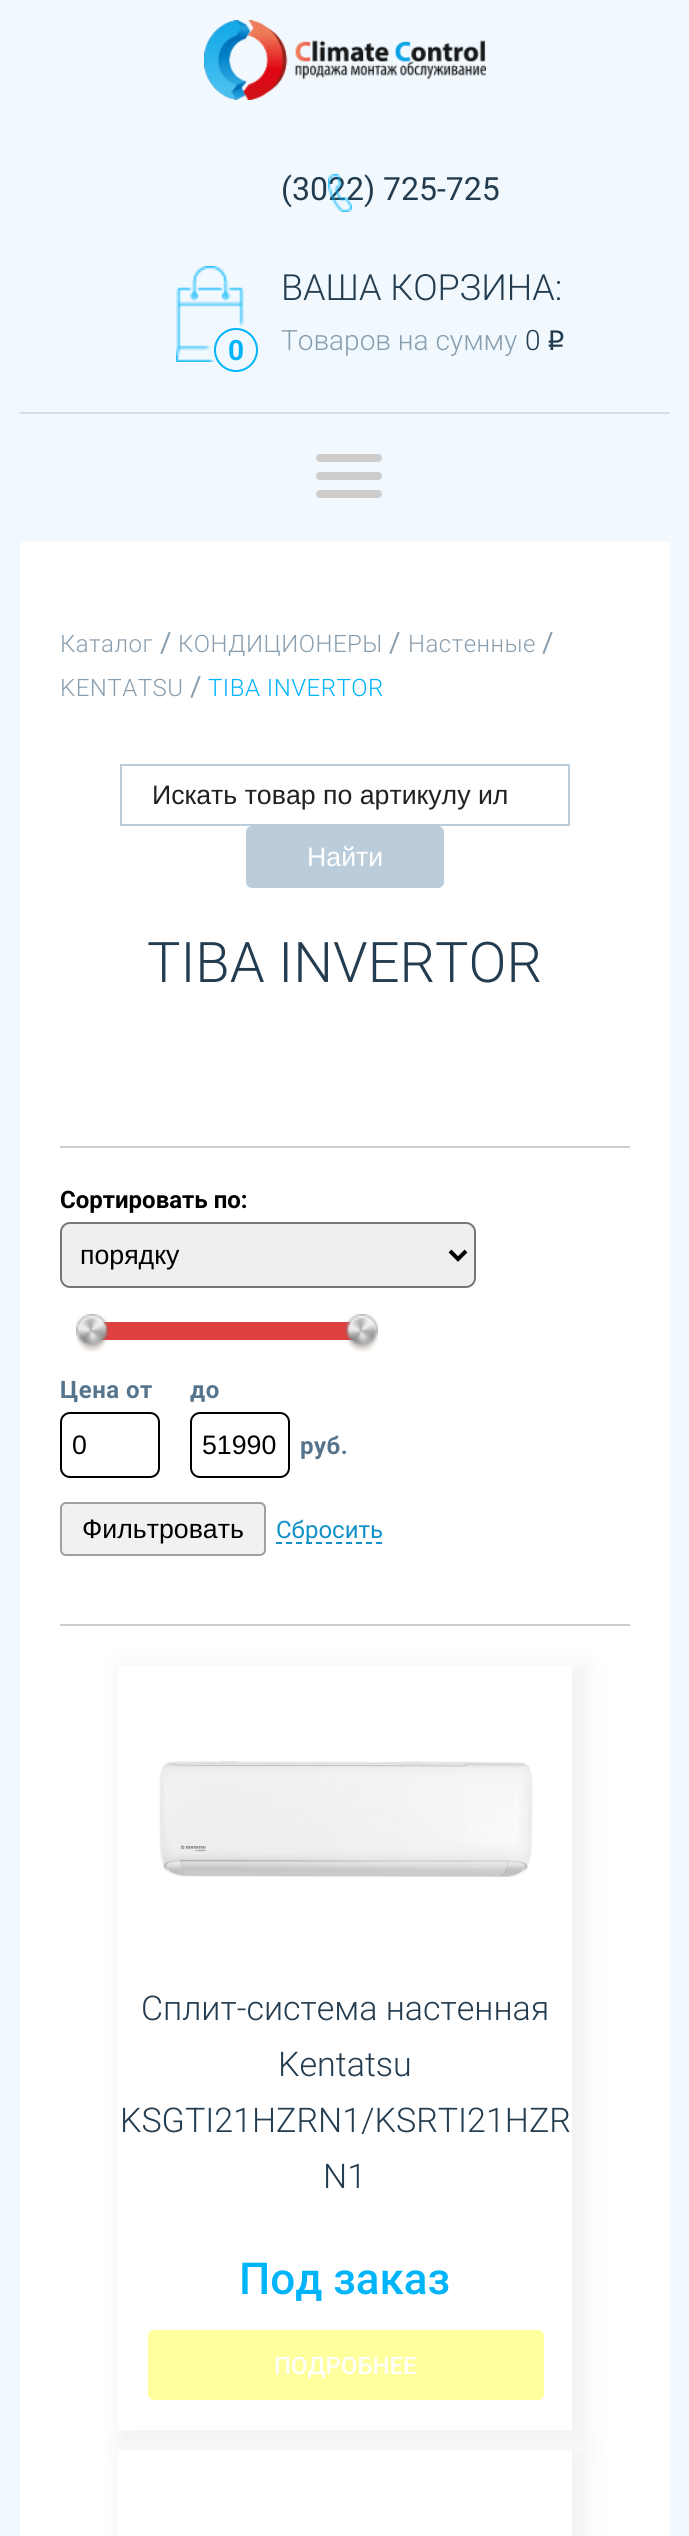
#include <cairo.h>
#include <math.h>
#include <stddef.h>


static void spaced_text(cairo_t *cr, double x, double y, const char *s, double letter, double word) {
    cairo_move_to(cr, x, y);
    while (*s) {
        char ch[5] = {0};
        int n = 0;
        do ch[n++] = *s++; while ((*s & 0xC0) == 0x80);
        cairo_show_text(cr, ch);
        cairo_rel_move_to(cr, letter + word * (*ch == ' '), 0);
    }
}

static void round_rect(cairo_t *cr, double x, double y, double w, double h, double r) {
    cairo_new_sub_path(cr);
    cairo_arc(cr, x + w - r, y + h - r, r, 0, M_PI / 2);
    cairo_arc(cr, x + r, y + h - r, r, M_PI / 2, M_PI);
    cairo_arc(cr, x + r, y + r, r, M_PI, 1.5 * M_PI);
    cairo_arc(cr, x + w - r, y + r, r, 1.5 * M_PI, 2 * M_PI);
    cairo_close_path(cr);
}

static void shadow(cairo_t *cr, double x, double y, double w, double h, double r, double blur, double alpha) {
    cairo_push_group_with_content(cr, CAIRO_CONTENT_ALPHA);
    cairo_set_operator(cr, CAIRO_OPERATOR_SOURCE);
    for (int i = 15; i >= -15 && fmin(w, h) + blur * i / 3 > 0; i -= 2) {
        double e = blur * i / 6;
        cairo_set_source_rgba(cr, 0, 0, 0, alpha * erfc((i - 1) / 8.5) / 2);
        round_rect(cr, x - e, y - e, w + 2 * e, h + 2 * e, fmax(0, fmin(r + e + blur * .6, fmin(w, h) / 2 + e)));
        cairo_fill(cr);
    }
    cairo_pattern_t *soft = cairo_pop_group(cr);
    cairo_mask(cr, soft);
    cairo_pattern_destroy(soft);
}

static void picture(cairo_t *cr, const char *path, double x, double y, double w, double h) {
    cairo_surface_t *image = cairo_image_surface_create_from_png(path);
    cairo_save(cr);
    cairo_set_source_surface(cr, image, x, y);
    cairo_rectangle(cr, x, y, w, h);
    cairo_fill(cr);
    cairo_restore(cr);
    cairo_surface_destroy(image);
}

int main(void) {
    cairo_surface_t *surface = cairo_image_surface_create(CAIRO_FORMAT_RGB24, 689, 2536);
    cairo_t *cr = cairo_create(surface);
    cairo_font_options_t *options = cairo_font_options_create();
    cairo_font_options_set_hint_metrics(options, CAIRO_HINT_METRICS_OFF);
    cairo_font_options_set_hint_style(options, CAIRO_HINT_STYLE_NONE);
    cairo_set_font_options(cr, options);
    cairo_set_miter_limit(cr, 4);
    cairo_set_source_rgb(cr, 0.945, 0.973, 0.996);
    cairo_paint(cr);
    picture(cr, "img1.png", 204, 20, 282, 80);
    cairo_select_font_face(cr, "Roboto", CAIRO_FONT_SLANT_NORMAL, CAIRO_FONT_WEIGHT_NORMAL);
    cairo_set_font_size(cr, 32);
    cairo_set_source_rgb(cr, 0.141, 0.235, 0.31);
    cairo_move_to(cr, 281, 200);
    cairo_show_text(cr, "(3022) 725-725");
    picture(cr, "img2.png", 328, 174, 24, 38);
    picture(cr, "img3.png", 176, 266, 68, 96);
    cairo_arc(cr, 236, 350, 21, 0, 2 * M_PI);
    cairo_set_source_rgb(cr, 0, 0.706, 0.98);
    cairo_stroke(cr);
    cairo_select_font_face(cr, "Roboto", CAIRO_FONT_SLANT_NORMAL, CAIRO_FONT_WEIGHT_BOLD);
    cairo_set_font_size(cr, 28);
    cairo_move_to(cr, 228, 360);
    cairo_show_text(cr, "0");
    cairo_select_font_face(cr, "Roboto Light", CAIRO_FONT_SLANT_NORMAL, CAIRO_FONT_WEIGHT_NORMAL);
    cairo_set_font_size(cr, 36);
    cairo_set_source_rgb(cr, 0.141, 0.235, 0.31);
    cairo_move_to(cr, 281, 300);
    cairo_show_text(cr, "ВАША КОРЗИНА:");
    cairo_set_font_size(cr, 28);
    cairo_set_source_rgb(cr, 0.533, 0.62, 0.686);
    cairo_move_to(cr, 281, 350);
    cairo_show_text(cr, "Товаров на сумму");
    cairo_set_source_rgb(cr, 0.141, 0.235, 0.31);
    cairo_move_to(cr, 525, 350);
    cairo_show_text(cr, "0");
    cairo_select_font_face(cr, "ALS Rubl", CAIRO_FONT_SLANT_NORMAL, CAIRO_FONT_WEIGHT_NORMAL);
    cairo_move_to(cr, 547, 350);
    cairo_show_text(cr, "q");
    cairo_set_source_rgb(cr, 0.847, 0.867, 0.906);
    cairo_rectangle(cr, 20, 412, 650, 2);
    cairo_fill(cr);
    cairo_set_source_rgb(cr, 0.804, 0.804, 0.804);
    round_rect(cr, 316, 454, 66, 8, 4);
    cairo_fill(cr);
    round_rect(cr, 316, 472, 66, 8, 4);
    cairo_fill(cr);
    round_rect(cr, 316, 490, 66, 8, 4);
    cairo_fill(cr);
    cairo_set_source_rgb(cr, 1, 1, 1);
    cairo_rectangle(cr, 20, 542, 650, 1994);
    cairo_fill(cr);
    cairo_select_font_face(cr, "Roboto Light", CAIRO_FONT_SLANT_NORMAL, CAIRO_FONT_WEIGHT_NORMAL);
    cairo_set_font_size(cr, 24);
    cairo_set_source_rgb(cr, 0.533, 0.62, 0.686);
    spaced_text(cr, 60, 652, "Каталог", 0.5, 0);
    cairo_select_font_face(cr, "Roboto", CAIRO_FONT_SLANT_NORMAL, CAIRO_FONT_WEIGHT_NORMAL);
    cairo_set_font_size(cr, 28);
    cairo_move_to(cr, 160, 652);
    cairo_show_text(cr, "/");
    cairo_select_font_face(cr, "Roboto Light", CAIRO_FONT_SLANT_NORMAL, CAIRO_FONT_WEIGHT_NORMAL);
    cairo_set_font_size(cr, 24);
    spaced_text(cr, 178, 652, "КОНДИЦИОНЕРЫ", 0.5, 0);
    cairo_select_font_face(cr, "Roboto", CAIRO_FONT_SLANT_NORMAL, CAIRO_FONT_WEIGHT_NORMAL);
    cairo_set_font_size(cr, 28);
    cairo_move_to(cr, 389, 652);
    cairo_show_text(cr, "/");
    cairo_select_font_face(cr, "Roboto Light", CAIRO_FONT_SLANT_NORMAL, CAIRO_FONT_WEIGHT_NORMAL);
    cairo_set_font_size(cr, 24);
    spaced_text(cr, 408, 652, "Настенные", 0.5, 0);
    cairo_select_font_face(cr, "Roboto", CAIRO_FONT_SLANT_NORMAL, CAIRO_FONT_WEIGHT_NORMAL);
    cairo_set_font_size(cr, 28);
    cairo_move_to(cr, 542, 652);
    cairo_show_text(cr, "/");
    cairo_select_font_face(cr, "Roboto Light", CAIRO_FONT_SLANT_NORMAL, CAIRO_FONT_WEIGHT_NORMAL);
    cairo_set_font_size(cr, 24);
    spaced_text(cr, 60, 696, "KENTATSU", 0.5, 0);
    cairo_select_font_face(cr, "Roboto", CAIRO_FONT_SLANT_NORMAL, CAIRO_FONT_WEIGHT_NORMAL);
    cairo_set_font_size(cr, 28);
    cairo_move_to(cr, 190, 696);
    cairo_show_text(cr, "/");
    cairo_select_font_face(cr, "Roboto Light", CAIRO_FONT_SLANT_NORMAL, CAIRO_FONT_WEIGHT_NORMAL);
    cairo_set_font_size(cr, 24);
    cairo_set_source_rgb(cr, 0, 0.706, 0.98);
    spaced_text(cr, 208, 696, "TIBA INVERTOR", 0.5, 0);
    cairo_rectangle(cr, 121, 765, 448, 60);
    cairo_set_source_rgb(cr, 0.733, 0.804, 0.859);
    cairo_stroke(cr);
    cairo_select_font_face(cr, "Liberation Sans", CAIRO_FONT_SLANT_NORMAL, CAIRO_FONT_WEIGHT_NORMAL);
    cairo_set_font_size(cr, 26.7);
    cairo_set_source_rgb(cr, 0.129, 0.129, 0.129);
    cairo_move_to(cr, 152, 804);
    cairo_show_text(cr, "Искать товар по артикулу ил");
    cairo_set_source_rgb(cr, 0.733, 0.804, 0.859);
    round_rect(cr, 246, 826, 198, 62, 6);
    cairo_fill(cr);
    cairo_set_source_rgb(cr, 1, 1, 1);
    cairo_move_to(cr, 307, 866);
    cairo_show_text(cr, "Найти");
    cairo_select_font_face(cr, "Roboto Light", CAIRO_FONT_SLANT_NORMAL, CAIRO_FONT_WEIGHT_NORMAL);
    cairo_set_font_size(cr, 56);
    cairo_set_source_rgb(cr, 0.141, 0.235, 0.31);
    cairo_move_to(cr, 147, 982);
    cairo_show_text(cr, "TIBA INVERTOR");
    cairo_set_source_rgb(cr, 0.804, 0.804, 0.804);
    cairo_rectangle(cr, 60, 1146, 570, 2);
    cairo_fill(cr);
    cairo_rectangle(cr, 60, 1624, 570, 2);
    cairo_fill(cr);
    cairo_select_font_face(cr, "Roboto", CAIRO_FONT_SLANT_NORMAL, CAIRO_FONT_WEIGHT_BOLD);
    cairo_set_font_size(cr, 24);
    cairo_set_source_rgb(cr, 0, 0, 0);
    cairo_move_to(cr, 60, 1208);
    cairo_show_text(cr, "Сортировать по:");
    cairo_set_source_rgb(cr, 0.937, 0.937, 0.937);
    round_rect(cr, 61, 1223, 414, 64, 9);
    cairo_fill_preserve(cr);
    cairo_set_source_rgb(cr, 0.463, 0.463, 0.463);
    cairo_stroke(cr);
    cairo_new_path(cr);
    cairo_move_to(cr, 450, 1251);
    cairo_line_to(cr, 458, 1259);
    cairo_line_to(cr, 466, 1251);
    cairo_set_source_rgb(cr, 0, 0, 0);
    cairo_set_line_width(cr, 4);
    cairo_stroke(cr);
    cairo_select_font_face(cr, "Liberation Sans", CAIRO_FONT_SLANT_NORMAL, CAIRO_FONT_WEIGHT_NORMAL);
    cairo_set_font_size(cr, 26.7);
    cairo_move_to(cr, 80, 1264);
    cairo_show_text(cr, "порядку");
    cairo_set_source_rgb(cr, 0.875, 0.255, 0.255);
    cairo_rectangle(cr, 98, 1322, 258, 18);
    cairo_fill(cr);
    picture(cr, "img4.png", 76, 1314, 32, 38);
    picture(cr, "img5.png", 346, 1314, 32, 38);
    cairo_select_font_face(cr, "Roboto", CAIRO_FONT_SLANT_NORMAL, CAIRO_FONT_WEIGHT_BOLD);
    cairo_set_font_size(cr, 24);
    cairo_set_source_rgb(cr, 0.337, 0.459, 0.553);
    spaced_text(cr, 60, 1398, "Цена от", 0.5, 0);
    round_rect(cr, 61, 1413, 98, 64, 9);
    cairo_set_source_rgb(cr, 0, 0, 0);
    cairo_set_line_width(cr, 2);
    cairo_stroke(cr);
    cairo_select_font_face(cr, "Liberation Sans", CAIRO_FONT_SLANT_NORMAL, CAIRO_FONT_WEIGHT_NORMAL);
    cairo_set_font_size(cr, 26.7);
    cairo_move_to(cr, 72, 1454);
    cairo_show_text(cr, "0");
    cairo_select_font_face(cr, "Roboto", CAIRO_FONT_SLANT_NORMAL, CAIRO_FONT_WEIGHT_BOLD);
    cairo_set_font_size(cr, 24);
    cairo_set_source_rgb(cr, 0.337, 0.459, 0.553);
    spaced_text(cr, 190, 1398, "до", 0.5, 0);
    round_rect(cr, 191, 1413, 98, 64, 9);
    cairo_set_source_rgb(cr, 0, 0, 0);
    cairo_stroke(cr);
    cairo_select_font_face(cr, "Liberation Sans", CAIRO_FONT_SLANT_NORMAL, CAIRO_FONT_WEIGHT_NORMAL);
    cairo_set_font_size(cr, 26.7);
    cairo_move_to(cr, 202, 1454);
    cairo_show_text(cr, "51990");
    cairo_select_font_face(cr, "Roboto", CAIRO_FONT_SLANT_NORMAL, CAIRO_FONT_WEIGHT_BOLD);
    cairo_set_font_size(cr, 24);
    cairo_set_source_rgb(cr, 0.337, 0.459, 0.553);
    spaced_text(cr, 300, 1454, "руб.", 0.5, 0);
    cairo_set_source_rgb(cr, 0.945, 0.945, 0.945);
    round_rect(cr, 61, 1503, 204, 52, 5);
    cairo_fill_preserve(cr);
    cairo_set_source_rgb(cr, 0.627, 0.627, 0.627);
    cairo_stroke(cr);
    cairo_select_font_face(cr, "Liberation Sans", CAIRO_FONT_SLANT_NORMAL, CAIRO_FONT_WEIGHT_NORMAL);
    cairo_set_font_size(cr, 26.7);
    cairo_set_source_rgb(cr, 0, 0, 0);
    cairo_move_to(cr, 82, 1538);
    cairo_show_text(cr, "Фильтровать");
    cairo_new_path(cr);
    cairo_move_to(cr, 276, 1543);
    cairo_line_to(cr, 382, 1543);
    cairo_set_source_rgb(cr, 0.075, 0.569, 0.78);
    cairo_set_dash(cr, (double[]){6, 4}, 2, 0);
    cairo_stroke(cr);
    cairo_select_font_face(cr, "Roboto", CAIRO_FONT_SLANT_NORMAL, CAIRO_FONT_WEIGHT_NORMAL);
    cairo_set_font_size(cr, 24);
    cairo_move_to(cr, 276, 1538);
    cairo_show_text(cr, "Сбросить");
    cairo_save(cr);
    cairo_set_fill_rule(cr, CAIRO_FILL_RULE_EVEN_ODD);
    cairo_new_path(cr);
    cairo_move_to(cr, 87, 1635);
    cairo_line_to(cr, 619, 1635);
    cairo_line_to(cr, 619, 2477);
    cairo_line_to(cr, 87, 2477);
    cairo_close_path(cr);
    cairo_move_to(cr, 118, 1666);
    cairo_line_to(cr, 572, 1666);
    cairo_line_to(cr, 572, 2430);
    cairo_line_to(cr, 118, 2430);
    cairo_close_path(cr);
    cairo_clip(cr);
    cairo_set_source_rgb(cr, 0.953, 0.953, 0.953);
    shadow(cr, 118, 1666, 470, 780, 0, 10, 1);
    cairo_restore(cr);
    picture(cr, "img6.png", 159, 1761, 374, 116);
    cairo_select_font_face(cr, "Roboto Light", CAIRO_FONT_SLANT_NORMAL, CAIRO_FONT_WEIGHT_NORMAL);
    cairo_set_font_size(cr, 34);
    cairo_set_source_rgb(cr, 0.141, 0.235, 0.31);
    cairo_move_to(cr, 141, 2020);
    cairo_show_text(cr, "Сплит-система настенная");
    cairo_move_to(cr, 278, 2076);
    cairo_show_text(cr, "Kentatsu");
    cairo_move_to(cr, 120, 2132);
    cairo_show_text(cr, "KSGTI21HZRN1/KSRTI21HZR");
    cairo_move_to(cr, 323, 2188);
    cairo_show_text(cr, "N1");
    cairo_select_font_face(cr, "Roboto Medium", CAIRO_FONT_SLANT_NORMAL, CAIRO_FONT_WEIGHT_NORMAL);
    cairo_set_font_size(cr, 44);
    cairo_set_source_rgb(cr, 0, 0.706, 0.98);
    cairo_move_to(cr, 239, 2294);
    cairo_show_text(cr, "Под заказ");
    cairo_set_source_rgb(cr, 1, 1, 0.616);
    round_rect(cr, 148, 2330, 396, 70, 6);
    cairo_fill(cr);
    cairo_set_font_size(cr, 24);
    cairo_set_source_rgb(cr, 1, 1, 1);
    cairo_move_to(cr, 274, 2374);
    cairo_show_text(cr, "ПОДРОБНЕЕ");
    cairo_set_source_rgb(cr, 0.953, 0.953, 0.953);
    shadow(cr, 118, 2450, 470, 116, 0, 10, 1);
    cairo_set_source_rgb(cr, 1, 1, 1);
    cairo_rectangle(cr, 118, 2450, 454, 86);
    cairo_fill(cr);
    cairo_surface_write_to_png(surface, "page.png");
    cairo_font_options_destroy(options);
    cairo_destroy(cr);
    cairo_surface_destroy(surface);
    return 0;
}
